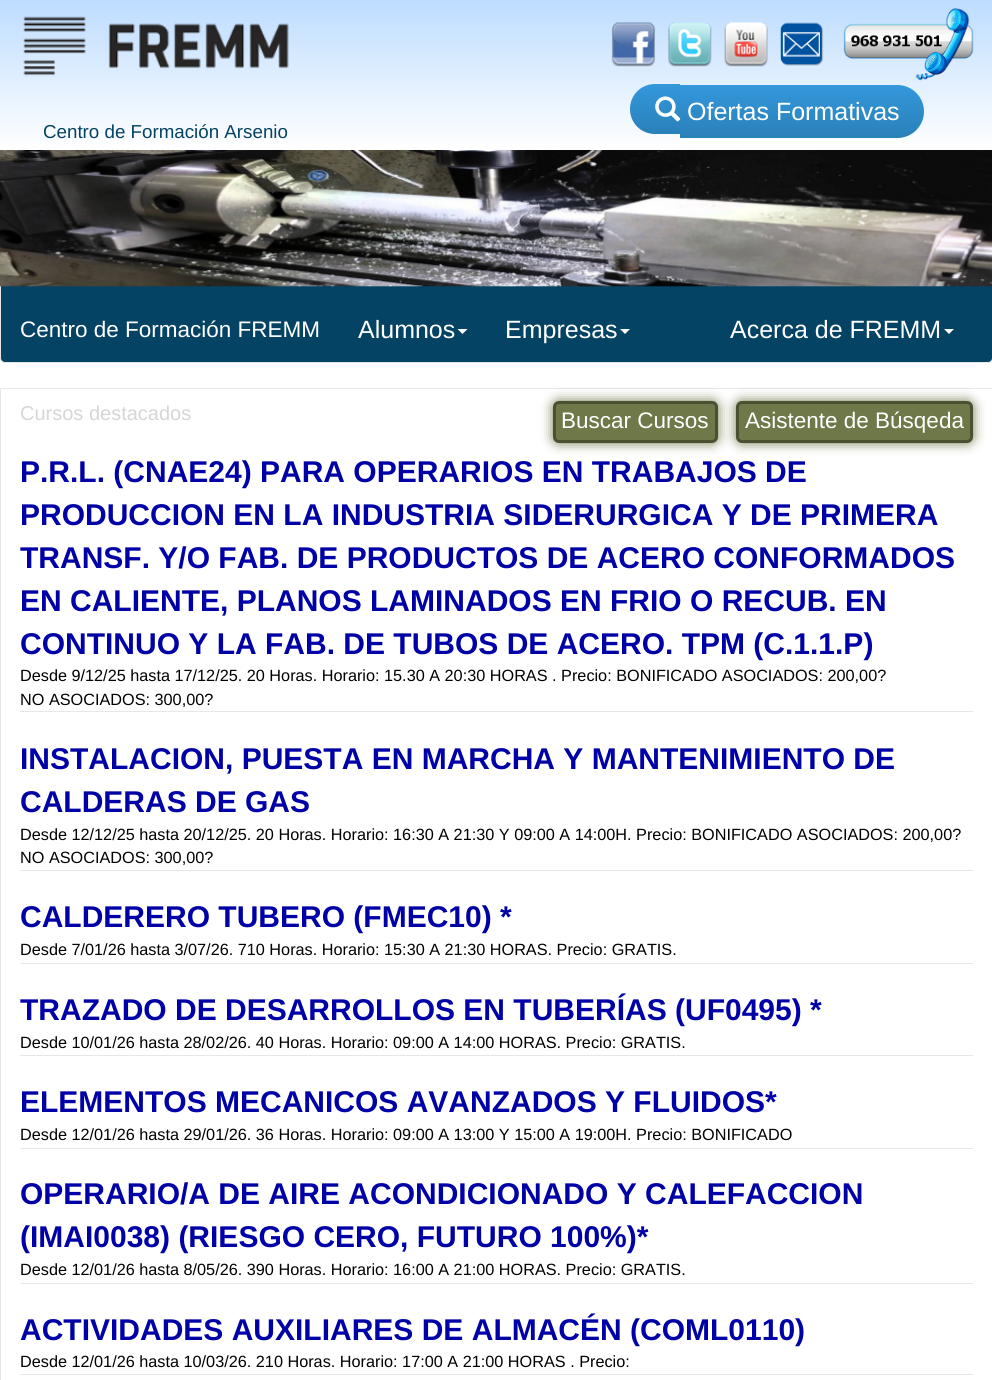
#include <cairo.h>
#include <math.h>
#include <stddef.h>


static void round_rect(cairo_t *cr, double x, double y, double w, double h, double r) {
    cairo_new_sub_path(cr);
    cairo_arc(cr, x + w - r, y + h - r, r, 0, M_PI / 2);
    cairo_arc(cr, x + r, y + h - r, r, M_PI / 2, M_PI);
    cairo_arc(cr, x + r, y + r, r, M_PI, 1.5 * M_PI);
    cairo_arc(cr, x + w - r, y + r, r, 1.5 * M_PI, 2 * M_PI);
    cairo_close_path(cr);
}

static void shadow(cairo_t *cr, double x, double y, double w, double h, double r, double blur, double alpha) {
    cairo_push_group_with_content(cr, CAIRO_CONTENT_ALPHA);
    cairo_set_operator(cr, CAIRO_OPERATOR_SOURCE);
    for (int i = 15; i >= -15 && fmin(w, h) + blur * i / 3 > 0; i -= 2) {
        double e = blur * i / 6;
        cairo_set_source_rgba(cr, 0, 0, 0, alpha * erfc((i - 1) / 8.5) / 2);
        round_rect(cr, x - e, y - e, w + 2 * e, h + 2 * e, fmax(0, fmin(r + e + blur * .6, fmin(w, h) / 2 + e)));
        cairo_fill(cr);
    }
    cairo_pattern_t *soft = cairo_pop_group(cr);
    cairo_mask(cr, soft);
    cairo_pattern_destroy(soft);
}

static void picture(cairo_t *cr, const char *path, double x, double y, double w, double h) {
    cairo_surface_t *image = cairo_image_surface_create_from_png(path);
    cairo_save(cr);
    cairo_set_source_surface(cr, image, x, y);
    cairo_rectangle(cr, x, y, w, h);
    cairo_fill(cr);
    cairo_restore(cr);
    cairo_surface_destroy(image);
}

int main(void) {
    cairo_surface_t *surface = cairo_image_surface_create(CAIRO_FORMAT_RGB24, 992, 1380);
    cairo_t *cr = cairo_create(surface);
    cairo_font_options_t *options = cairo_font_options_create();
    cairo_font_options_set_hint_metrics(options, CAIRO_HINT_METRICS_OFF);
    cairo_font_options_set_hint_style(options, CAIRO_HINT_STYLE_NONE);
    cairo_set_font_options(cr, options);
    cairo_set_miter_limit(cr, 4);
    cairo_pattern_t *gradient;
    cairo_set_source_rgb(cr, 1, 1, 1);
    cairo_paint(cr);
    gradient = cairo_pattern_create_linear(496, 150, 496, 0);
    cairo_pattern_add_color_stop_rgba(gradient, 0, 1, 1, 1, 1);
    cairo_pattern_add_color_stop_rgba(gradient, 1, 0.741, 0.863, 1, 1);
    cairo_set_source(cr, gradient);
    cairo_pattern_destroy(gradient);
    cairo_rectangle(cr, 0, 0, 992, 144);
    cairo_fill(cr);
    picture(cr, "img1.png", 611, 22, 44, 45);
    picture(cr, "img2.png", 668, 22, 44, 45);
    picture(cr, "img3.png", 724, 22, 44, 45);
    picture(cr, "img4.png", 780, 22, 44, 44);
    picture(cr, "img5.png", 843, 8, 131, 73);
    gradient = cairo_pattern_create_linear(655, 84, 655, 134);
    cairo_pattern_add_color_stop_rgba(gradient, 0, 0.204, 0.596, 0.859, 1);
    cairo_pattern_add_color_stop_rgba(gradient, 1, 0.161, 0.502, 0.725, 1);
    cairo_set_source(cr, gradient);
    cairo_pattern_destroy(gradient);
    cairo_new_path(cr);
    cairo_move_to(cr, 655, 84);
    cairo_line_to(cr, 680, 84);
    cairo_line_to(cr, 680, 134);
    cairo_line_to(cr, 655, 134);
    cairo_curve_to(cr, 641, 134, 630, 123, 630, 109);
    cairo_curve_to(cr, 630, 95, 641, 84, 655, 84);
    cairo_close_path(cr);
    cairo_fill(cr);
    gradient = cairo_pattern_create_linear(802, 85, 802, 138);
    cairo_pattern_add_color_stop_rgba(gradient, 0, 0.204, 0.596, 0.859, 1);
    cairo_pattern_add_color_stop_rgba(gradient, 1, 0.161, 0.502, 0.725, 1);
    cairo_set_source(cr, gradient);
    cairo_pattern_destroy(gradient);
    cairo_new_path(cr);
    cairo_move_to(cr, 680, 85);
    cairo_line_to(cr, 897.5, 85);
    cairo_curve_to(cr, 912, 85, 924, 97, 924, 111.5);
    cairo_curve_to(cr, 924, 126, 912, 138, 897.5, 138);
    cairo_line_to(cr, 680, 138);
    cairo_close_path(cr);
    cairo_fill(cr);
    picture(cr, "img6.png", 655, 96, 26, 26);
    cairo_select_font_face(cr, "Liberation Sans", CAIRO_FONT_SLANT_NORMAL, CAIRO_FONT_WEIGHT_NORMAL);
    cairo_set_font_size(cr, 25);
    cairo_set_source_rgb(cr, 1, 1, 1);
    cairo_move_to(cr, 687, 120);
    cairo_show_text(cr, "Ofertas Formativas");
    picture(cr, "img7.png", 23, 16, 266, 60);
    cairo_set_font_size(cr, 18.75);
    cairo_set_source_rgb(cr, 0.016, 0.263, 0.392);
    cairo_move_to(cr, 43, 138);
    cairo_show_text(cr, "Centro de Formación Arsenio");
    round_rect(cr, 0.5, 150.5, 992, 212, 4.5);
    cairo_fill_preserve(cr);
    cairo_set_source_rgb(cr, 0.906, 0.906, 0.906);
    cairo_set_line_width(cr, 1);
    cairo_stroke(cr);
    picture(cr, "img8.png", 0, 150, 992, 137);
    cairo_set_font_size(cr, 22.5);
    cairo_set_source_rgb(cr, 1, 1, 1);
    cairo_move_to(cr, 20, 337);
    cairo_show_text(cr, "Centro de Formación FREMM");
    cairo_set_font_size(cr, 25);
    cairo_move_to(cr, 358, 338);
    cairo_show_text(cr, "Alumnos");
    cairo_new_path(cr);
    cairo_move_to(cr, 457.5, 329);
    cairo_line_to(cr, 467.5, 329);
    cairo_line_to(cr, 462.5, 334);
    cairo_close_path(cr);
    cairo_fill(cr);
    cairo_move_to(cr, 505, 338);
    cairo_show_text(cr, "Empresas");
    cairo_new_path(cr);
    cairo_move_to(cr, 620, 329);
    cairo_line_to(cr, 630, 329);
    cairo_line_to(cr, 625, 334);
    cairo_close_path(cr);
    cairo_fill(cr);
    cairo_move_to(cr, 730, 338);
    cairo_show_text(cr, "Acerca de FREMM");
    cairo_new_path(cr);
    cairo_move_to(cr, 944, 329);
    cairo_line_to(cr, 954, 329);
    cairo_line_to(cr, 949, 334);
    cairo_close_path(cr);
    cairo_fill(cr);
    cairo_rectangle(cr, 0.5, 388.5, 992, 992);
    cairo_set_source_rgb(cr, 0.906, 0.906, 0.906);
    cairo_stroke(cr);
    cairo_set_font_size(cr, 20);
    cairo_set_source_rgb(cr, 0.839, 0.839, 0.839);
    cairo_move_to(cr, 20, 420);
    cairo_show_text(cr, "Cursos destacados");
    cairo_set_source_rgb(cr, 0.431, 0.471, 0.286);
    shadow(cr, 736, 401, 237, 42, 6, 6, 1);
    cairo_set_source_rgb(cr, 0.431, 0.471, 0.286);
    round_rect(cr, 737.5, 402.5, 234, 39, 4.5);
    cairo_fill_preserve(cr);
    cairo_set_source_rgb(cr, 0.29, 0.314, 0.196);
    cairo_set_line_width(cr, 3);
    cairo_stroke(cr);
    cairo_set_source_rgb(cr, 0.431, 0.471, 0.286);
    shadow(cr, 553, 401, 165, 42, 6, 6, 1);
    cairo_set_source_rgb(cr, 0.431, 0.471, 0.286);
    round_rect(cr, 554.5, 402.5, 162, 39, 4.5);
    cairo_fill_preserve(cr);
    cairo_set_source_rgb(cr, 0.29, 0.314, 0.196);
    cairo_stroke(cr);
    cairo_set_font_size(cr, 22.5);
    cairo_set_source_rgb(cr, 1, 1, 1);
    cairo_move_to(cr, 561, 428);
    cairo_show_text(cr, "Buscar Cursos");
    cairo_move_to(cr, 745, 428);
    cairo_show_text(cr, "Asistente de Búsqeda");
    cairo_set_source_rgb(cr, 0.906, 0.906, 0.906);
    cairo_rectangle(cr, 20, 711, 953, 1);
    cairo_fill(cr);
    cairo_select_font_face(cr, "Liberation Sans", CAIRO_FONT_SLANT_NORMAL, CAIRO_FONT_WEIGHT_BOLD);
    cairo_set_font_size(cr, 30);
    cairo_set_source_rgb(cr, 0, 0, 0.655);
    cairo_move_to(cr, 20, 482);
    cairo_show_text(cr, "P.R.L. (CNAE24) PARA OPERARIOS EN TRABAJOS DE");
    cairo_move_to(cr, 20, 525);
    cairo_show_text(cr, "PRODUCCION EN LA INDUSTRIA SIDERURGICA Y DE PRIMERA");
    cairo_move_to(cr, 20, 568);
    cairo_show_text(cr, "TRANSF. Y/O FAB. DE PRODUCTOS DE ACERO CONFORMADOS");
    cairo_move_to(cr, 20, 611);
    cairo_show_text(cr, "EN CALIENTE, PLANOS LAMINADOS EN FRIO O RECUB. EN");
    cairo_move_to(cr, 20, 654);
    cairo_show_text(cr, "CONTINUO Y LA FAB. DE TUBOS DE ACERO. TPM (C.1.1.P)");
    cairo_select_font_face(cr, "Liberation Sans", CAIRO_FONT_SLANT_NORMAL, CAIRO_FONT_WEIGHT_NORMAL);
    cairo_set_font_size(cr, 16.25);
    cairo_set_source_rgb(cr, 0, 0, 0);
    cairo_move_to(cr, 20, 681);
    cairo_show_text(cr, "Desde 9/12/25 hasta 17/12/25. 20 Horas. Horario: 15.30 A 20:30 HORAS . Precio: BONIFICADO ASOCIADOS: 200,00?");
    cairo_move_to(cr, 20, 705);
    cairo_show_text(cr, "NO ASOCIADOS: 300,00?");
    cairo_set_source_rgb(cr, 0.906, 0.906, 0.906);
    cairo_rectangle(cr, 20, 870, 953, 1);
    cairo_fill(cr);
    cairo_select_font_face(cr, "Liberation Sans", CAIRO_FONT_SLANT_NORMAL, CAIRO_FONT_WEIGHT_BOLD);
    cairo_set_font_size(cr, 30);
    cairo_set_source_rgb(cr, 0, 0, 0.655);
    cairo_move_to(cr, 20, 769);
    cairo_show_text(cr, "INSTALACION, PUESTA EN MARCHA Y MANTENIMIENTO DE");
    cairo_move_to(cr, 20, 812);
    cairo_show_text(cr, "CALDERAS DE GAS");
    cairo_select_font_face(cr, "Liberation Sans", CAIRO_FONT_SLANT_NORMAL, CAIRO_FONT_WEIGHT_NORMAL);
    cairo_set_font_size(cr, 16.25);
    cairo_set_source_rgb(cr, 0, 0, 0);
    cairo_move_to(cr, 20, 840);
    cairo_show_text(cr, "Desde 12/12/25 hasta 20/12/25. 20 Horas. Horario: 16:30 A 21:30 Y 09:00 A 14:00H. Precio: BONIFICADO ASOCIADOS: 200,00?");
    cairo_move_to(cr, 20, 863);
    cairo_show_text(cr, "NO ASOCIADOS: 300,00?");
    cairo_set_source_rgb(cr, 0.906, 0.906, 0.906);
    cairo_rectangle(cr, 20, 963, 953, 1);
    cairo_fill(cr);
    cairo_select_font_face(cr, "Liberation Sans", CAIRO_FONT_SLANT_NORMAL, CAIRO_FONT_WEIGHT_BOLD);
    cairo_set_font_size(cr, 30);
    cairo_set_source_rgb(cr, 0, 0, 0.655);
    cairo_move_to(cr, 20, 927);
    cairo_show_text(cr, "CALDERERO TUBERO (FMEC10) *");
    cairo_select_font_face(cr, "Liberation Sans", CAIRO_FONT_SLANT_NORMAL, CAIRO_FONT_WEIGHT_NORMAL);
    cairo_set_font_size(cr, 16.25);
    cairo_set_source_rgb(cr, 0, 0, 0);
    cairo_move_to(cr, 20, 955);
    cairo_show_text(cr, "Desde 7/01/26 hasta 3/07/26. 710 Horas. Horario: 15:30 A 21:30 HORAS. Precio: GRATIS.");
    cairo_set_source_rgb(cr, 0.906, 0.906, 0.906);
    cairo_rectangle(cr, 20, 1055, 953, 1);
    cairo_fill(cr);
    cairo_select_font_face(cr, "Liberation Sans", CAIRO_FONT_SLANT_NORMAL, CAIRO_FONT_WEIGHT_BOLD);
    cairo_set_font_size(cr, 30);
    cairo_set_source_rgb(cr, 0, 0, 0.655);
    cairo_move_to(cr, 20, 1020);
    cairo_show_text(cr, "TRAZADO DE DESARROLLOS EN TUBERÍAS (UF0495) *");
    cairo_select_font_face(cr, "Liberation Sans", CAIRO_FONT_SLANT_NORMAL, CAIRO_FONT_WEIGHT_NORMAL);
    cairo_set_font_size(cr, 16.25);
    cairo_set_source_rgb(cr, 0, 0, 0);
    cairo_move_to(cr, 20, 1048);
    cairo_show_text(cr, "Desde 10/01/26 hasta 28/02/26. 40 Horas. Horario: 09:00 A 14:00 HORAS. Precio: GRATIS.");
    cairo_set_source_rgb(cr, 0.906, 0.906, 0.906);
    cairo_rectangle(cr, 20, 1148, 953, 1);
    cairo_fill(cr);
    cairo_select_font_face(cr, "Liberation Sans", CAIRO_FONT_SLANT_NORMAL, CAIRO_FONT_WEIGHT_BOLD);
    cairo_set_font_size(cr, 30);
    cairo_set_source_rgb(cr, 0, 0, 0.655);
    cairo_move_to(cr, 20, 1112);
    cairo_show_text(cr, "ELEMENTOS MECANICOS AVANZADOS Y FLUIDOS*");
    cairo_select_font_face(cr, "Liberation Sans", CAIRO_FONT_SLANT_NORMAL, CAIRO_FONT_WEIGHT_NORMAL);
    cairo_set_font_size(cr, 16.25);
    cairo_set_source_rgb(cr, 0, 0, 0);
    cairo_move_to(cr, 20, 1140);
    cairo_show_text(cr, "Desde 12/01/26 hasta 29/01/26. 36 Horas. Horario: 09:00 A 13:00 Y 15:00 A 19:00H. Precio: BONIFICADO");
    cairo_set_source_rgb(cr, 0.906, 0.906, 0.906);
    cairo_rectangle(cr, 20, 1283, 953, 1);
    cairo_fill(cr);
    cairo_select_font_face(cr, "Liberation Sans", CAIRO_FONT_SLANT_NORMAL, CAIRO_FONT_WEIGHT_BOLD);
    cairo_set_font_size(cr, 30);
    cairo_set_source_rgb(cr, 0, 0, 0.655);
    cairo_move_to(cr, 20, 1204);
    cairo_show_text(cr, "OPERARIO/A DE AIRE ACONDICIONADO Y CALEFACCION");
    cairo_move_to(cr, 20, 1247);
    cairo_show_text(cr, "(IMAI0038) (RIESGO CERO, FUTURO 100%)*");
    cairo_select_font_face(cr, "Liberation Sans", CAIRO_FONT_SLANT_NORMAL, CAIRO_FONT_WEIGHT_NORMAL);
    cairo_set_font_size(cr, 16.25);
    cairo_set_source_rgb(cr, 0, 0, 0);
    cairo_move_to(cr, 20, 1275);
    cairo_show_text(cr, "Desde 12/01/26 hasta 8/05/26. 390 Horas. Horario: 16:00 A 21:00 HORAS. Precio: GRATIS.");
    cairo_set_source_rgb(cr, 0.906, 0.906, 0.906);
    cairo_rectangle(cr, 20, 1374, 953, 1);
    cairo_fill(cr);
    cairo_select_font_face(cr, "Liberation Sans", CAIRO_FONT_SLANT_NORMAL, CAIRO_FONT_WEIGHT_BOLD);
    cairo_set_font_size(cr, 30);
    cairo_set_source_rgb(cr, 0, 0, 0.655);
    cairo_move_to(cr, 20, 1340);
    cairo_show_text(cr, "ACTIVIDADES AUXILIARES DE ALMACÉN (COML0110)");
    cairo_select_font_face(cr, "Liberation Sans", CAIRO_FONT_SLANT_NORMAL, CAIRO_FONT_WEIGHT_NORMAL);
    cairo_set_font_size(cr, 16.25);
    cairo_set_source_rgb(cr, 0, 0, 0);
    cairo_move_to(cr, 20, 1367);
    cairo_show_text(cr, "Desde 12/01/26 hasta 10/03/26. 210 Horas. Horario: 17:00 A 21:00 HORAS . Precio:");
    cairo_surface_write_to_png(surface, "page.png");
    cairo_font_options_destroy(options);
    cairo_destroy(cr);
    cairo_surface_destroy(surface);
    return 0;
}
